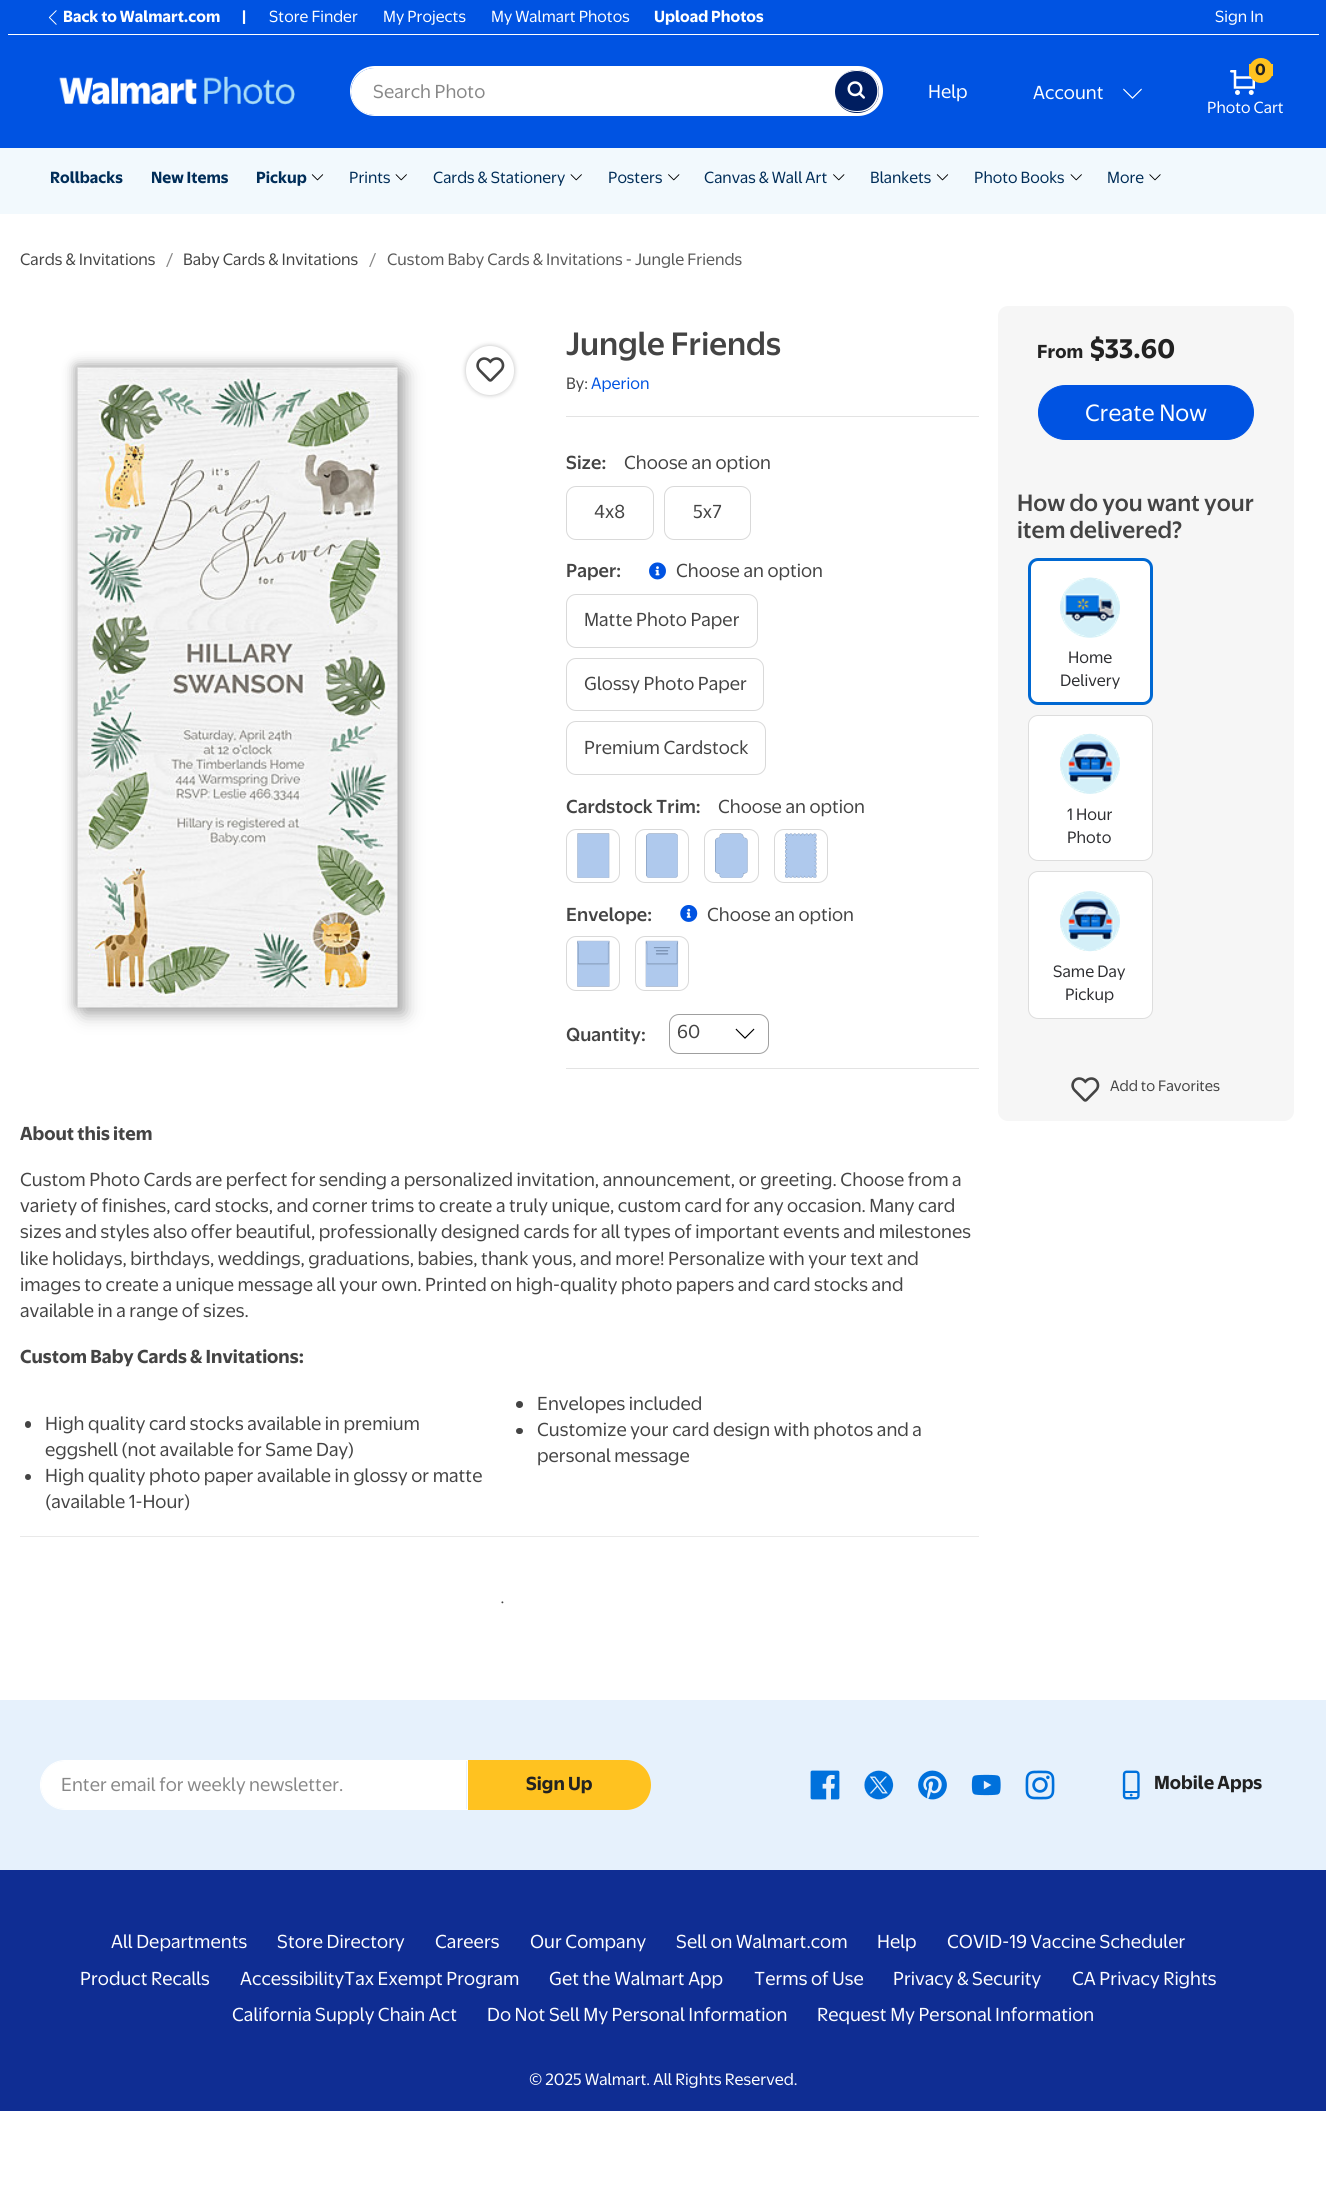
#include <cairo.h>
#include <math.h>
#include <stddef.h>


static void round_rect(cairo_t *cr, double x, double y, double w, double h, double r) {
    cairo_new_sub_path(cr);
    cairo_arc(cr, x + w - r, y + h - r, r, 0, M_PI / 2);
    cairo_arc(cr, x + r, y + h - r, r, M_PI / 2, M_PI);
    cairo_arc(cr, x + r, y + r, r, M_PI, 1.5 * M_PI);
    cairo_arc(cr, x + w - r, y + r, r, 1.5 * M_PI, 2 * M_PI);
    cairo_close_path(cr);
}

static void shadow(cairo_t *cr, double x, double y, double w, double h, double r, double blur, double alpha) {
    cairo_push_group_with_content(cr, CAIRO_CONTENT_ALPHA);
    cairo_set_operator(cr, CAIRO_OPERATOR_SOURCE);
    for (int i = 15; i >= -15 && fmin(w, h) + blur * i / 3 > 0; i -= 2) {
        double e = blur * i / 6;
        cairo_set_source_rgba(cr, 0, 0, 0, alpha * erfc((i - 1) / 8.5) / 2);
        round_rect(cr, x - e, y - e, w + 2 * e, h + 2 * e, fmax(0, fmin(r + e + blur * .6, fmin(w, h) / 2 + e)));
        cairo_fill(cr);
    }
    cairo_pattern_t *soft = cairo_pop_group(cr);
    cairo_mask(cr, soft);
    cairo_pattern_destroy(soft);
}

static void picture(cairo_t *cr, const char *path, double x, double y, double w, double h) {
    cairo_surface_t *image = cairo_image_surface_create_from_png(path);
    cairo_save(cr);
    cairo_set_source_surface(cr, image, x, y);
    cairo_rectangle(cr, x, y, w, h);
    cairo_fill(cr);
    cairo_restore(cr);
    cairo_surface_destroy(image);
}

int main(void) {
    cairo_surface_t *surface = cairo_image_surface_create(CAIRO_FORMAT_RGB24, 1326, 2185);
    cairo_t *cr = cairo_create(surface);
    cairo_font_options_t *options = cairo_font_options_create();
    cairo_font_options_set_hint_metrics(options, CAIRO_HINT_METRICS_OFF);
    cairo_font_options_set_hint_style(options, CAIRO_HINT_STYLE_NONE);
    cairo_set_font_options(cr, options);
    cairo_set_miter_limit(cr, 4);
    cairo_set_source_rgb(cr, 1, 1, 1);
    cairo_paint(cr);
    cairo_set_source_rgb(cr, 0, 0.325, 0.886);
    cairo_rectangle(cr, 0, 0, 1326, 148);
    cairo_fill(cr);
    cairo_set_source_rgb(cr, 1, 1, 1);
    cairo_rectangle(cr, 8, 34, 1311, 1);
    cairo_fill(cr);
    picture(cr, "img1.png", 48, 10, 9, 15);
    cairo_select_font_face(cr, "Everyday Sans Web", CAIRO_FONT_SLANT_NORMAL, CAIRO_FONT_WEIGHT_BOLD);
    cairo_set_font_size(cr, 15);
    cairo_move_to(cr, 63, 22);
    cairo_show_text(cr, "Back to Walmart.com");
    cairo_move_to(cr, 242, 22);
    cairo_show_text(cr, "|");
    cairo_select_font_face(cr, "Everyday Sans Web", CAIRO_FONT_SLANT_NORMAL, CAIRO_FONT_WEIGHT_NORMAL);
    cairo_move_to(cr, 269, 22);
    cairo_show_text(cr, "Store Finder");
    cairo_move_to(cr, 383, 22);
    cairo_show_text(cr, "My Projects");
    cairo_move_to(cr, 491, 22);
    cairo_show_text(cr, "My Walmart Photos");
    cairo_select_font_face(cr, "Everyday Sans Web", CAIRO_FONT_SLANT_NORMAL, CAIRO_FONT_WEIGHT_BOLD);
    cairo_move_to(cr, 654, 22);
    cairo_show_text(cr, "Upload Photos");
    cairo_select_font_face(cr, "Everyday Sans Web", CAIRO_FONT_SLANT_NORMAL, CAIRO_FONT_WEIGHT_NORMAL);
    cairo_move_to(cr, 1215, 22);
    cairo_show_text(cr, "Sign In");
    picture(cr, "img2.png", 59, 76, 236, 29);
    cairo_new_path(cr);
    cairo_move_to(cr, 374.5, 68);
    cairo_line_to(cr, 835, 68);
    cairo_line_to(cr, 835, 115);
    cairo_line_to(cr, 374.5, 115);
    cairo_curve_to(cr, 361.5, 115, 351, 104.5, 351, 91.5);
    cairo_curve_to(cr, 351, 78.5, 361.5, 68, 374.5, 68);
    cairo_close_path(cr);
    cairo_fill(cr);
    cairo_set_fill_rule(cr, CAIRO_FILL_RULE_EVEN_ODD);
    cairo_new_path(cr);
    cairo_move_to(cr, 375, 66);
    cairo_line_to(cr, 835, 66);
    cairo_line_to(cr, 835, 116);
    cairo_line_to(cr, 375, 116);
    cairo_curve_to(cr, 361, 116, 350, 105, 350, 91);
    cairo_curve_to(cr, 350, 77, 361, 66, 375, 66);
    cairo_close_path(cr);
    cairo_move_to(cr, 375, 68);
    cairo_line_to(cr, 835, 68);
    cairo_line_to(cr, 835, 115);
    cairo_line_to(cr, 375, 115);
    cairo_curve_to(cr, 362, 115, 351, 104, 351, 91);
    cairo_curve_to(cr, 351, 78, 362, 68, 375, 68);
    cairo_close_path(cr);
    cairo_fill(cr);
    cairo_set_font_size(cr, 17.5);
    cairo_set_source_rgb(cr, 0.533, 0.533, 0.533);
    cairo_move_to(cr, 373, 98);
    cairo_show_text(cr, "Search Photo");
    cairo_set_source_rgb(cr, 1, 1, 1);
    cairo_new_path(cr);
    cairo_move_to(cr, 835, 66);
    cairo_line_to(cr, 858, 66);
    cairo_curve_to(cr, 872, 66, 883, 77, 883, 91);
    cairo_curve_to(cr, 883, 105, 872, 116, 858, 116);
    cairo_line_to(cr, 835, 116);
    cairo_close_path(cr);
    cairo_fill(cr);
    cairo_set_source_rgb(cr, 0, 0.118, 0.376);
    round_rect(cr, 835, 70, 44, 43, 21.5);
    cairo_fill(cr);
    cairo_set_source_rgb(cr, 1, 1, 1);
    cairo_new_path(cr);
    cairo_move_to(cr, 857, 70);
    cairo_curve_to(cr, 886, 70, 886, 113, 857, 112);
    cairo_curve_to(cr, 828, 112, 828, 70, 857, 70);
    cairo_close_path(cr);
    cairo_move_to(cr, 857, 71);
    cairo_curve_to(cr, 884, 71, 884, 111, 857, 111);
    cairo_curve_to(cr, 828, 111, 828, 71, 857, 71);
    cairo_close_path(cr);
    cairo_fill(cr);
    picture(cr, "img3.png", 847, 81, 18, 18);
    cairo_move_to(cr, 928, 98);
    cairo_show_text(cr, "Help");
    cairo_move_to(cr, 1033, 99);
    cairo_show_text(cr, "Account");
    picture(cr, "img4.png", 1123, 88, 19, 11);
    picture(cr, "img5.png", 1230, 70, 25, 25);
    cairo_set_source_rgb(cr, 1, 0.761, 0.125);
    round_rect(cr, 1249, 58, 24, 25, 12);
    cairo_fill(cr);
    cairo_rectangle(cr, 1271, 64, 2, 12);
    cairo_fill(cr);
    cairo_rectangle(cr, 1249, 64, 2, 12);
    cairo_fill(cr);
    cairo_select_font_face(cr, "Everyday Sans Web", CAIRO_FONT_SLANT_NORMAL, CAIRO_FONT_WEIGHT_BOLD);
    cairo_set_font_size(cr, 15);
    cairo_set_source_rgb(cr, 0.133, 0.133, 0.133);
    cairo_move_to(cr, 1255, 75);
    cairo_show_text(cr, "0");
    cairo_select_font_face(cr, "Everyday Sans Web", CAIRO_FONT_SLANT_NORMAL, CAIRO_FONT_WEIGHT_NORMAL);
    cairo_set_source_rgb(cr, 1, 1, 1);
    cairo_move_to(cr, 1207, 113);
    cairo_show_text(cr, "Photo Cart");
    cairo_set_source_rgb(cr, 0.949, 0.973, 0.992);
    cairo_rectangle(cr, 0, 148, 1326, 66);
    cairo_fill(cr);
    cairo_select_font_face(cr, "Everyday Sans Web", CAIRO_FONT_SLANT_NORMAL, CAIRO_FONT_WEIGHT_BOLD);
    cairo_set_source_rgb(cr, 0, 0.176, 0.345);
    cairo_move_to(cr, 50, 183);
    cairo_show_text(cr, "Rollbacks");
    cairo_move_to(cr, 151, 183);
    cairo_show_text(cr, "New Items");
    cairo_move_to(cr, 256, 183);
    cairo_show_text(cr, "Pickup");
    picture(cr, "img6.png", 311, 174, 13, 7);
    cairo_select_font_face(cr, "Everyday Sans Web", CAIRO_FONT_SLANT_NORMAL, CAIRO_FONT_WEIGHT_NORMAL);
    cairo_move_to(cr, 349, 183);
    cairo_show_text(cr, "Prints");
    picture(cr, "img7.png", 395, 174, 12, 7);
    cairo_move_to(cr, 433, 183);
    cairo_show_text(cr, "Cards & Stationery");
    picture(cr, "img7.png", 570, 174, 12, 7);
    cairo_move_to(cr, 608, 183);
    cairo_show_text(cr, "Posters");
    picture(cr, "img8.png", 668, 174, 12, 7);
    cairo_move_to(cr, 704, 183);
    cairo_show_text(cr, "Canvas & Wall Art");
    picture(cr, "img8.png", 833, 174, 12, 7);
    cairo_move_to(cr, 870, 183);
    cairo_show_text(cr, "Blankets");
    picture(cr, "img6.png", 936, 174, 13, 7);
    cairo_move_to(cr, 974, 183);
    cairo_show_text(cr, "Photo Books");
    picture(cr, "img7.png", 1070, 174, 12, 7);
    cairo_move_to(cr, 1107, 183);
    cairo_show_text(cr, "More");
    picture(cr, "img9.png", 1149, 174, 12, 7);
    cairo_set_font_size(cr, 15.3);
    cairo_set_source_rgb(cr, 0.267, 0.267, 0.267);
    cairo_move_to(cr, 20, 265);
    cairo_show_text(cr, "Cards & Invitations");
    cairo_set_source_rgb(cr, 0.533, 0.533, 0.533);
    cairo_move_to(cr, 166, 265);
    cairo_show_text(cr, "/");
    cairo_set_source_rgb(cr, 0.267, 0.267, 0.267);
    cairo_move_to(cr, 183, 265);
    cairo_show_text(cr, "Baby Cards & Invitations");
    cairo_set_source_rgb(cr, 0.533, 0.533, 0.533);
    cairo_move_to(cr, 369, 265);
    cairo_show_text(cr, "/");
    cairo_set_source_rgb(cr, 0.349, 0.349, 0.349);
    cairo_move_to(cr, 387, 265);
    cairo_show_text(cr, "Custom Baby Cards & Invitations - Jungle Friends");
    cairo_set_source_rgb(cr, 0.651, 0.651, 0.651);
    shadow(cr, 84, 373, 320, 640, 0, 9, 1);
    shadow(cr, 76, 366, 320, 640, 0, 6, 1);
    picture(cr, "img10.png", 77, 367, 321, 641);
    cairo_set_source_rgb(cr, 0.133, 0.133, 0.133);
    shadow(cr, 466, 346, 48, 49, 24, 2.5, 0.3);
    cairo_set_source_rgb(cr, 1, 1, 1);
    round_rect(cr, 466, 346, 48, 49, 24);
    cairo_fill(cr);
    picture(cr, "img11.png", 476, 357, 29, 25);
    cairo_select_font_face(cr, "Everyday Sans Web Medium", CAIRO_FONT_SLANT_NORMAL, CAIRO_FONT_WEIGHT_NORMAL);
    cairo_set_font_size(cr, 30);
    cairo_set_source_rgb(cr, 0.267, 0.267, 0.267);
    cairo_move_to(cr, 566, 355);
    cairo_show_text(cr, "Jungle Friends");
    cairo_select_font_face(cr, "Everyday Sans Web", CAIRO_FONT_SLANT_NORMAL, CAIRO_FONT_WEIGHT_NORMAL);
    cairo_set_font_size(cr, 15.3);
    cairo_move_to(cr, 566, 389);
    cairo_show_text(cr, "By:");
    cairo_set_source_rgb(cr, 0, 0.325, 0.886);
    cairo_move_to(cr, 591, 389);
    cairo_show_text(cr, "Aperion");
    cairo_set_source_rgb(cr, 0.89, 0.89, 0.89);
    cairo_rectangle(cr, 566, 416, 413, 1);
    cairo_fill(cr);
    cairo_rectangle(cr, 566, 1068, 413, 1);
    cairo_fill(cr);
    cairo_select_font_face(cr, "Everyday Sans Web Medium", CAIRO_FONT_SLANT_NORMAL, CAIRO_FONT_WEIGHT_NORMAL);
    cairo_set_font_size(cr, 17.5);
    cairo_set_source_rgb(cr, 0.267, 0.267, 0.267);
    cairo_move_to(cr, 566, 469);
    cairo_show_text(cr, "Size:");
    cairo_select_font_face(cr, "Everyday Sans Web", CAIRO_FONT_SLANT_NORMAL, CAIRO_FONT_WEIGHT_NORMAL);
    cairo_move_to(cr, 624, 469);
    cairo_show_text(cr, "Choose an option");
    round_rect(cr, 566.5, 486.5, 87, 53, 9.5);
    cairo_set_source_rgb(cr, 0.851, 0.851, 0.851);
    cairo_set_line_width(cr, 1);
    cairo_stroke(cr);
    cairo_set_source_rgb(cr, 0.267, 0.267, 0.267);
    cairo_move_to(cr, 594, 518);
    cairo_show_text(cr, "4x8");
    round_rect(cr, 664.5, 486.5, 86, 53, 9.5);
    cairo_set_source_rgb(cr, 0.851, 0.851, 0.851);
    cairo_stroke(cr);
    cairo_set_source_rgb(cr, 0.267, 0.267, 0.267);
    cairo_move_to(cr, 693, 518);
    cairo_show_text(cr, "5x7");
    cairo_select_font_face(cr, "Everyday Sans Web Medium", CAIRO_FONT_SLANT_NORMAL, CAIRO_FONT_WEIGHT_NORMAL);
    cairo_move_to(cr, 566, 577);
    cairo_show_text(cr, "Paper:");
    picture(cr, "img12.png", 649, 562, 17, 18);
    cairo_select_font_face(cr, "Everyday Sans Web", CAIRO_FONT_SLANT_NORMAL, CAIRO_FONT_WEIGHT_NORMAL);
    cairo_move_to(cr, 676, 577);
    cairo_show_text(cr, "Choose an option");
    round_rect(cr, 566.5, 594.5, 191, 53, 9.5);
    cairo_set_source_rgb(cr, 0.851, 0.851, 0.851);
    cairo_stroke(cr);
    cairo_set_source_rgb(cr, 0.267, 0.267, 0.267);
    cairo_move_to(cr, 584, 626);
    cairo_show_text(cr, "Matte Photo Paper");
    round_rect(cr, 566.5, 658.5, 197, 52, 9.5);
    cairo_set_source_rgb(cr, 0.851, 0.851, 0.851);
    cairo_stroke(cr);
    cairo_set_source_rgb(cr, 0.267, 0.267, 0.267);
    cairo_move_to(cr, 584, 690);
    cairo_show_text(cr, "Glossy Photo Paper");
    round_rect(cr, 566.5, 721.5, 199, 53, 9.5);
    cairo_set_source_rgb(cr, 0.851, 0.851, 0.851);
    cairo_stroke(cr);
    cairo_set_source_rgb(cr, 0.267, 0.267, 0.267);
    cairo_move_to(cr, 584, 754);
    cairo_show_text(cr, "Premium Cardstock");
    cairo_select_font_face(cr, "Everyday Sans Web Medium", CAIRO_FONT_SLANT_NORMAL, CAIRO_FONT_WEIGHT_NORMAL);
    cairo_move_to(cr, 566, 813);
    cairo_show_text(cr, "Cardstock Trim:");
    cairo_select_font_face(cr, "Everyday Sans Web", CAIRO_FONT_SLANT_NORMAL, CAIRO_FONT_WEIGHT_NORMAL);
    cairo_move_to(cr, 718, 813);
    cairo_show_text(cr, "Choose an option");
    round_rect(cr, 566.5, 829.5, 53, 53, 9.5);
    cairo_set_source_rgb(cr, 0.851, 0.851, 0.851);
    cairo_stroke(cr);
    picture(cr, "img13.png", 577, 833, 33, 45);
    round_rect(cr, 635.5, 829.5, 53, 53, 9.5);
    cairo_stroke(cr);
    picture(cr, "img14.png", 646, 833, 32, 45);
    round_rect(cr, 704.5, 829.5, 54, 53, 9.5);
    cairo_stroke(cr);
    picture(cr, "img15.png", 715, 833, 33, 45);
    round_rect(cr, 774.5, 829.5, 53, 53, 9.5);
    cairo_stroke(cr);
    picture(cr, "img16.png", 785, 833, 32, 45);
    cairo_select_font_face(cr, "Everyday Sans Web Medium", CAIRO_FONT_SLANT_NORMAL, CAIRO_FONT_WEIGHT_NORMAL);
    cairo_set_source_rgb(cr, 0.267, 0.267, 0.267);
    cairo_move_to(cr, 566, 921);
    cairo_show_text(cr, "Envelope:");
    picture(cr, "img17.png", 680, 905, 18, 17);
    cairo_select_font_face(cr, "Everyday Sans Web", CAIRO_FONT_SLANT_NORMAL, CAIRO_FONT_WEIGHT_NORMAL);
    cairo_move_to(cr, 707, 921);
    cairo_show_text(cr, "Choose an option");
    round_rect(cr, 566.5, 936.5, 53, 54, 9.5);
    cairo_set_source_rgb(cr, 0.851, 0.851, 0.851);
    cairo_stroke(cr);
    picture(cr, "img18.png", 577, 940, 33, 47);
    round_rect(cr, 635.5, 936.5, 53, 54, 9.5);
    cairo_stroke(cr);
    picture(cr, "img19.png", 645, 940, 34, 47);
    cairo_select_font_face(cr, "Everyday Sans Web Medium", CAIRO_FONT_SLANT_NORMAL, CAIRO_FONT_WEIGHT_NORMAL);
    cairo_set_source_rgb(cr, 0.267, 0.267, 0.267);
    cairo_move_to(cr, 566, 1041);
    cairo_show_text(cr, "Quantity:");
    round_rect(cr, 669.5, 1014.5, 99, 39, 9.5);
    cairo_set_source_rgb(cr, 0.624, 0.624, 0.624);
    cairo_stroke(cr);
    cairo_select_font_face(cr, "Everyday Sans Web", CAIRO_FONT_SLANT_NORMAL, CAIRO_FONT_WEIGHT_NORMAL);
    cairo_set_source_rgb(cr, 0.267, 0.267, 0.267);
    cairo_move_to(cr, 677, 1038);
    cairo_show_text(cr, "60");
    picture(cr, "img20.png", 735, 1028, 20, 11);
    cairo_set_source_rgb(cr, 0.961, 0.961, 0.961);
    round_rect(cr, 998, 306, 296, 815, 10);
    cairo_fill(cr);
    cairo_select_font_face(cr, "Everyday Sans Web", CAIRO_FONT_SLANT_NORMAL, CAIRO_FONT_WEIGHT_BOLD);
    cairo_set_source_rgb(cr, 0.133, 0.133, 0.133);
    cairo_move_to(cr, 1037, 358);
    cairo_show_text(cr, "From");
    cairo_set_font_size(cr, 25);
    cairo_move_to(cr, 1090, 358);
    cairo_show_text(cr, "$33.60");
    cairo_set_source_rgb(cr, 0, 0.325, 0.886);
    round_rect(cr, 1038.5, 385.5, 215, 54, 27);
    cairo_fill_preserve(cr);
    cairo_stroke(cr);
    cairo_select_font_face(cr, "Everyday Sans Web", CAIRO_FONT_SLANT_NORMAL, CAIRO_FONT_WEIGHT_NORMAL);
    cairo_set_font_size(cr, 21.9);
    cairo_set_source_rgb(cr, 1, 1, 1);
    cairo_move_to(cr, 1085, 421);
    cairo_show_text(cr, "Create Now");
    cairo_select_font_face(cr, "Everyday Sans Web Medium", CAIRO_FONT_SLANT_NORMAL, CAIRO_FONT_WEIGHT_NORMAL);
    cairo_set_source_rgb(cr, 0.267, 0.267, 0.267);
    cairo_move_to(cr, 1017, 511);
    cairo_show_text(cr, "How do you want your");
    cairo_move_to(cr, 1017, 538);
    cairo_show_text(cr, "item delivered?");
    cairo_set_source_rgb(cr, 1, 1, 1);
    round_rect(cr, 1029.5, 559.5, 122, 144, 8.5);
    cairo_fill_preserve(cr);
    cairo_set_source_rgb(cr, 0, 0.408, 0.824);
    cairo_set_line_width(cr, 3);
    cairo_stroke(cr);
    cairo_set_source_rgb(cr, 0.914, 0.973, 0.988);
    cairo_arc(cr, 1090, 608, 30, 0, 2 * M_PI);
    cairo_fill(cr);
    picture(cr, "img21.png", 1060, 577, 60, 61);
    cairo_select_font_face(cr, "Everyday Sans Web", CAIRO_FONT_SLANT_NORMAL, CAIRO_FONT_WEIGHT_NORMAL);
    cairo_set_font_size(cr, 15.3);
    cairo_set_source_rgb(cr, 0.18, 0.184, 0.196);
    cairo_move_to(cr, 1068, 663);
    cairo_show_text(cr, "Home");
    cairo_move_to(cr, 1060, 686);
    cairo_show_text(cr, "Delivery");
    cairo_set_source_rgb(cr, 1, 1, 1);
    round_rect(cr, 1028.5, 715.5, 124, 145, 9.5);
    cairo_fill_preserve(cr);
    cairo_set_source_rgb(cr, 0.867, 0.867, 0.867);
    cairo_set_line_width(cr, 1);
    cairo_stroke(cr);
    cairo_set_source_rgb(cr, 0.914, 0.973, 0.988);
    cairo_arc(cr, 1090, 764, 30, 0, 2 * M_PI);
    cairo_fill(cr);
    picture(cr, "img22.png", 1060, 733, 60, 61);
    cairo_set_source_rgb(cr, 0.18, 0.184, 0.196);
    cairo_move_to(cr, 1067, 820);
    cairo_show_text(cr, "1 Hour");
    cairo_move_to(cr, 1067, 843);
    cairo_show_text(cr, "Photo");
    cairo_set_source_rgb(cr, 1, 1, 1);
    round_rect(cr, 1028.5, 871.5, 124, 147, 9.5);
    cairo_fill_preserve(cr);
    cairo_set_source_rgb(cr, 0.867, 0.867, 0.867);
    cairo_stroke(cr);
    cairo_set_source_rgb(cr, 0.914, 0.973, 0.988);
    cairo_arc(cr, 1090, 921, 30, 0, 2 * M_PI);
    cairo_fill(cr);
    picture(cr, "img23.png", 1060, 891, 60, 61);
    cairo_set_source_rgb(cr, 0.18, 0.184, 0.196);
    cairo_move_to(cr, 1053, 977);
    cairo_show_text(cr, "Same Day");
    cairo_move_to(cr, 1065, 1000);
    cairo_show_text(cr, "Pickup");
    picture(cr, "img24.png", 1071, 1077, 29, 25);
    cairo_set_font_size(cr, 14);
    cairo_set_source_rgb(cr, 0.267, 0.267, 0.267);
    cairo_move_to(cr, 1110, 1091);
    cairo_show_text(cr, "Add to Favorites");
    cairo_select_font_face(cr, "Everyday Sans Web", CAIRO_FONT_SLANT_NORMAL, CAIRO_FONT_WEIGHT_BOLD);
    cairo_set_font_size(cr, 17.5);
    cairo_move_to(cr, 20, 1140);
    cairo_show_text(cr, "About this item");
    cairo_select_font_face(cr, "Everyday Sans Web", CAIRO_FONT_SLANT_NORMAL, CAIRO_FONT_WEIGHT_NORMAL);
    cairo_move_to(cr, 20, 1186);
    cairo_show_text(cr, "Custom Photo Cards are perfect for sending a personalized invitation, announcement, or greeting. Choose from a");
    cairo_move_to(cr, 20, 1212);
    cairo_show_text(cr, "variety of finishes, card stocks, and corner trims to create a truly unique, custom card for any occasion. Many card");
    cairo_move_to(cr, 20, 1238);
    cairo_show_text(cr, "sizes and styles also offer beautiful, professionally designed cards for all types of important events and milestones");
    cairo_move_to(cr, 20, 1265);
    cairo_show_text(cr, "like holidays, birthdays, weddings, graduations, babies, thank yous, and more! Personalize with your text and");
    cairo_move_to(cr, 20, 1291);
    cairo_show_text(cr, "images to create a unique message all your own. Printed on high-quality photo papers and card stocks and");
    cairo_move_to(cr, 20, 1317);
    cairo_show_text(cr, "available in a range of sizes.");
    cairo_select_font_face(cr, "Everyday Sans Web", CAIRO_FONT_SLANT_NORMAL, CAIRO_FONT_WEIGHT_BOLD);
    cairo_move_to(cr, 20, 1363);
    cairo_show_text(cr, "Custom Baby Cards & Invitations:");
    cairo_new_path(cr);
    cairo_arc(cr, 519.5, 1404.5, 3.5, 0, 2 * M_PI);
    cairo_fill(cr);
    cairo_select_font_face(cr, "Everyday Sans Web", CAIRO_FONT_SLANT_NORMAL, CAIRO_FONT_WEIGHT_NORMAL);
    cairo_move_to(cr, 537, 1410);
    cairo_show_text(cr, "Envelopes included");
    round_rect(cr, 25, 1421, 6, 7, 3);
    cairo_fill(cr);
    cairo_move_to(cr, 45, 1430);
    cairo_show_text(cr, "High quality card stocks available in premium");
    cairo_move_to(cr, 45, 1456);
    cairo_show_text(cr, "eggshell (not available for Same Day)");
    round_rect(cr, 516, 1428, 7, 6, 3);
    cairo_fill(cr);
    cairo_move_to(cr, 537, 1436);
    cairo_show_text(cr, "Customize your card design with photos and a");
    cairo_move_to(cr, 537, 1462);
    cairo_show_text(cr, "personal message");
    cairo_new_path(cr);
    cairo_arc(cr, 28, 1477, 3, 0, 2 * M_PI);
    cairo_fill(cr);
    cairo_move_to(cr, 45, 1482);
    cairo_show_text(cr, "High quality photo paper available in glossy or matte");
    cairo_move_to(cr, 45, 1508);
    cairo_show_text(cr, "(available 1-Hour)");
    cairo_set_source_rgb(cr, 0.914, 0.914, 0.914);
    cairo_rectangle(cr, 20, 1536, 959, 1);
    cairo_fill(cr);
    cairo_select_font_face(cr, "Liberation Serif", CAIRO_FONT_SLANT_NORMAL, CAIRO_FONT_WEIGHT_NORMAL);
    cairo_set_font_size(cr, 8);
    cairo_set_source_rgb(cr, 0.267, 0.267, 0.267);
    cairo_move_to(cr, 501, 1605);
    cairo_show_text(cr, "•");
    cairo_set_source_rgb(cr, 0.902, 0.945, 0.988);
    cairo_rectangle(cr, 0, 1700, 1326, 170);
    cairo_fill(cr);
    cairo_set_source_rgb(cr, 1, 1, 1);
    cairo_new_path(cr);
    cairo_move_to(cr, 65, 1761);
    cairo_line_to(cr, 466, 1761);
    cairo_line_to(cr, 466, 1809);
    cairo_line_to(cr, 65, 1809);
    cairo_curve_to(cr, 51.5, 1809, 41, 1798.5, 41, 1785);
    cairo_curve_to(cr, 41, 1771.5, 51.5, 1761, 65, 1761);
    cairo_close_path(cr);
    cairo_fill(cr);
    cairo_new_path(cr);
    cairo_move_to(cr, 65, 1760.5);
    cairo_line_to(cr, 467.5, 1760.5);
    cairo_line_to(cr, 467.5, 1809.5);
    cairo_line_to(cr, 65, 1809.5);
    cairo_curve_to(cr, 51.5, 1809.5, 40.5, 1798.5, 40.5, 1785);
    cairo_curve_to(cr, 40.5, 1771.5, 51.5, 1760.5, 65, 1760.5);
    cairo_close_path(cr);
    cairo_stroke(cr);
    cairo_select_font_face(cr, "Everyday Sans Web", CAIRO_FONT_SLANT_NORMAL, CAIRO_FONT_WEIGHT_NORMAL);
    cairo_set_font_size(cr, 17.5);
    cairo_set_source_rgb(cr, 0.533, 0.533, 0.533);
    cairo_move_to(cr, 61, 1791);
    cairo_show_text(cr, "Enter email for weekly newsletter.");
    cairo_set_source_rgb(cr, 1, 0.761, 0.125);
    cairo_new_path(cr);
    cairo_move_to(cr, 468, 1760);
    cairo_line_to(cr, 626, 1760);
    cairo_curve_to(cr, 640, 1760, 651, 1771, 651, 1785);
    cairo_curve_to(cr, 651, 1799, 640, 1810, 626, 1810);
    cairo_line_to(cr, 468, 1810);
    cairo_close_path(cr);
    cairo_fill(cr);
    cairo_select_font_face(cr, "Everyday Sans Web", CAIRO_FONT_SLANT_NORMAL, CAIRO_FONT_WEIGHT_BOLD);
    cairo_set_source_rgb(cr, 0.133, 0.133, 0.133);
    cairo_move_to(cr, 526, 1790);
    cairo_show_text(cr, "Sign Up");
    picture(cr, "img25.png", 810, 1770, 30, 30);
    picture(cr, "img26.png", 864, 1770, 30, 30);
    picture(cr, "img27.png", 918, 1770, 29, 30);
    picture(cr, "img28.png", 971, 1774, 30, 22);
    picture(cr, "img29.png", 1025, 1770, 30, 30);
    picture(cr, "img30.png", 1122, 1770, 18, 30);
    cairo_move_to(cr, 1154, 1789);
    cairo_show_text(cr, "Mobile Apps");
    cairo_set_source_rgb(cr, 0.059, 0.176, 0.576);
    cairo_rectangle(cr, 0, 1870, 1326, 241);
    cairo_fill(cr);
    cairo_select_font_face(cr, "Everyday Sans Web", CAIRO_FONT_SLANT_NORMAL, CAIRO_FONT_WEIGHT_NORMAL);
    cairo_set_source_rgb(cr, 1, 1, 1);
    cairo_move_to(cr, 111, 1948);
    cairo_show_text(cr, "All Departments");
    cairo_move_to(cr, 277, 1948);
    cairo_show_text(cr, "Store Directory");
    cairo_move_to(cr, 435, 1948);
    cairo_show_text(cr, "Careers");
    cairo_move_to(cr, 530, 1948);
    cairo_show_text(cr, "Our Company");
    cairo_move_to(cr, 676, 1948);
    cairo_show_text(cr, "Sell on Walmart.com");
    cairo_move_to(cr, 877, 1948);
    cairo_show_text(cr, "Help");
    cairo_move_to(cr, 947, 1948);
    cairo_show_text(cr, "COVID-19 Vaccine Scheduler");
    cairo_move_to(cr, 80, 1985);
    cairo_show_text(cr, "Product Recalls");
    cairo_move_to(cr, 240, 1985);
    cairo_show_text(cr, "AccessibilityTax Exempt Program");
    cairo_move_to(cr, 549, 1985);
    cairo_show_text(cr, "Get the Walmart App");
    cairo_move_to(cr, 754, 1985);
    cairo_show_text(cr, "Terms of Use");
    cairo_move_to(cr, 893, 1985);
    cairo_show_text(cr, "Privacy & Security");
    cairo_move_to(cr, 1072, 1985);
    cairo_show_text(cr, "CA Privacy Rights");
    cairo_move_to(cr, 232, 2021);
    cairo_show_text(cr, "California Supply Chain Act");
    cairo_move_to(cr, 487, 2021);
    cairo_show_text(cr, "Do Not Sell My Personal Information");
    cairo_move_to(cr, 817, 2021);
    cairo_show_text(cr, "Request My Personal Information");
    cairo_set_font_size(cr, 15.3);
    cairo_move_to(cr, 529, 2085);
    cairo_show_text(cr, "© 2025 Walmart. All Rights Reserved.");
    cairo_surface_write_to_png(surface, "page.png");
    cairo_font_options_destroy(options);
    cairo_destroy(cr);
    cairo_surface_destroy(surface);
    return 0;
}
